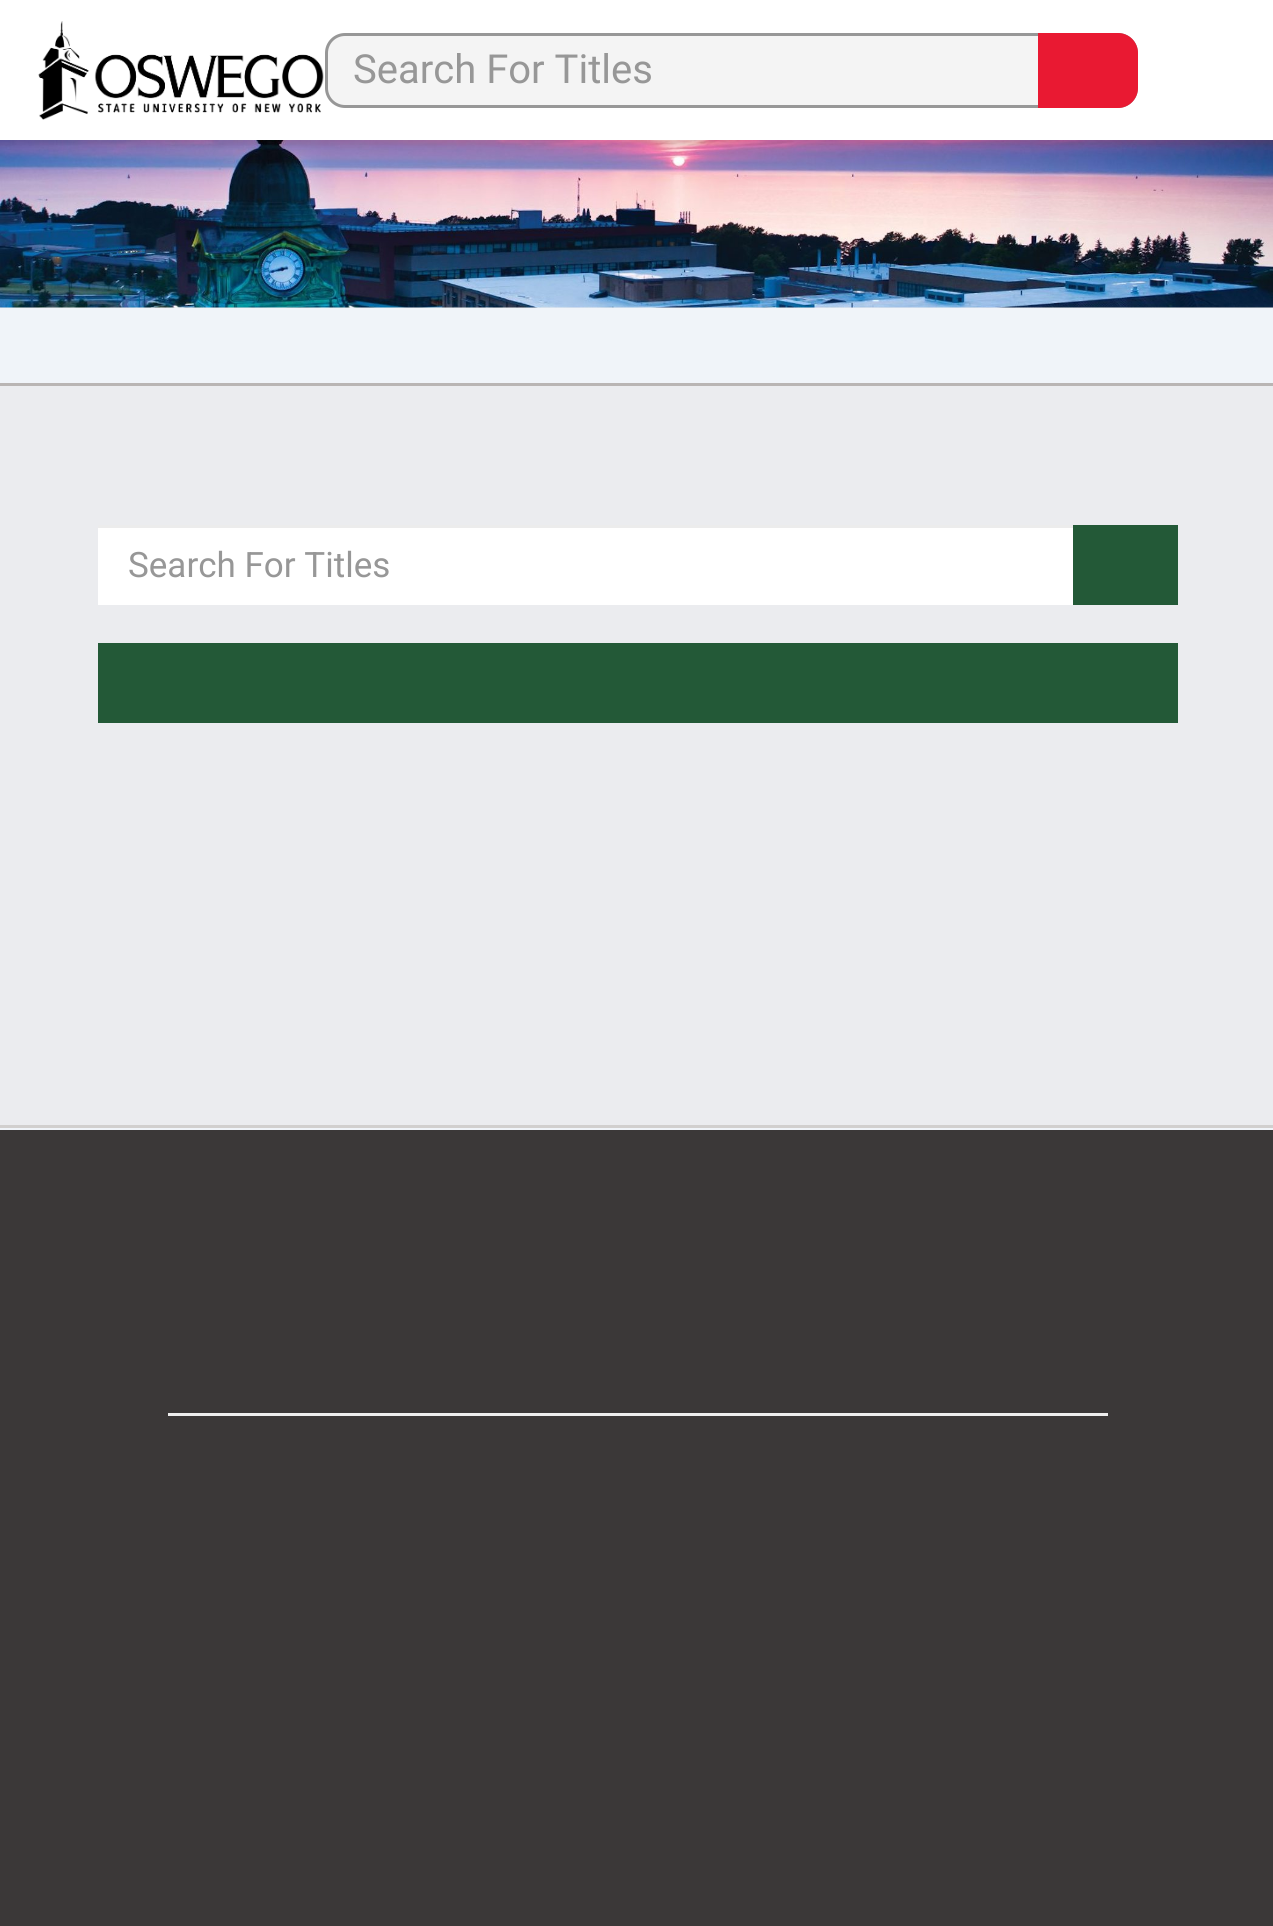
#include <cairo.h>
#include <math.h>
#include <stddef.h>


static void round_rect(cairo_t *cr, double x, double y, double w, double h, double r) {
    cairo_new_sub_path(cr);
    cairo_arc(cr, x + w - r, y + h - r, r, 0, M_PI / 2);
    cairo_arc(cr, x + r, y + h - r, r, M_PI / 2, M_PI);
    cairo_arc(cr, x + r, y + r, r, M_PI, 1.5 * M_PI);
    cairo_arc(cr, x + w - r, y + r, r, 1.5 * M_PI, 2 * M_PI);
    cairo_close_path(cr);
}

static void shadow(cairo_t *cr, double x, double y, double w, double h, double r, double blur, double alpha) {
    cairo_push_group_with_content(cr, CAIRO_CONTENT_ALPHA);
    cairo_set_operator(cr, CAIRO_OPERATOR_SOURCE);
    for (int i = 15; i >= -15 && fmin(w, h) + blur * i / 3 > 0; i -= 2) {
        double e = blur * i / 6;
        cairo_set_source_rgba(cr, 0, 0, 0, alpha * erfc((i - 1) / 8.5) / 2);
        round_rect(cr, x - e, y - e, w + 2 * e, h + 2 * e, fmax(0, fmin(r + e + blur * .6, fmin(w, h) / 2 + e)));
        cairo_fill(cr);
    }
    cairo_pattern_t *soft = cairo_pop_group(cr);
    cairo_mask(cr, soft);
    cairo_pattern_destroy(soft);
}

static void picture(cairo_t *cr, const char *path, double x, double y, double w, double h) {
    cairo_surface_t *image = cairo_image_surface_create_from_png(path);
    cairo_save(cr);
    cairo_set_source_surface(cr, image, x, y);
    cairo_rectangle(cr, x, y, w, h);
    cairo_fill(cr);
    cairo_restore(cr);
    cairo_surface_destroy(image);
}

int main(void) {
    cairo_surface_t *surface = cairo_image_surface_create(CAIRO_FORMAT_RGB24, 1273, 1926);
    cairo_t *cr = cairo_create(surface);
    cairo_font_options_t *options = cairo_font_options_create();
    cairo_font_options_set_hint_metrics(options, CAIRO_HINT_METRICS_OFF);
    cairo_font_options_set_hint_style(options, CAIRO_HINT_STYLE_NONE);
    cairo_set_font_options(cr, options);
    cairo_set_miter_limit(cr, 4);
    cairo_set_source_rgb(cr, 0.941, 0.957, 0.973);
    cairo_paint(cr);
    cairo_set_source_rgb(cr, 0.933, 0.933, 0.933);
    cairo_rectangle(cr, 0, 307, 1273, 1);
    cairo_fill(cr);
    picture(cr, "img2.png", 0, 140, 1273, 168);
    cairo_set_source_rgb(cr, 0, 0, 0);
    shadow(cr, -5, -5, 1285, 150, 0, 2.5, 0.1);
    cairo_set_source_rgb(cr, 1, 1, 1);
    cairo_rectangle(cr, 0, 0, 1273, 140);
    cairo_fill(cr);
    picture(cr, "img1.png", 38, 21, 286, 99);
    cairo_set_source_rgb(cr, 0.957, 0.957, 0.957);
    round_rect(cr, 326.5, 34.5, 810, 72, 18.5);
    cairo_fill_preserve(cr);
    cairo_set_source_rgb(cr, 0.592, 0.592, 0.592);
    cairo_set_line_width(cr, 3);
    cairo_stroke(cr);
    cairo_select_font_face(cr, "Roboto", CAIRO_FONT_SLANT_NORMAL, CAIRO_FONT_WEIGHT_NORMAL);
    cairo_set_font_size(cr, 40);
    cairo_move_to(cr, 353, 83);
    cairo_show_text(cr, "Search For Titles");
    cairo_set_source_rgb(cr, 0.914, 0.098, 0.196);
    cairo_new_path(cr);
    cairo_move_to(cr, 1038, 33);
    cairo_line_to(cr, 1118, 33);
    cairo_curve_to(cr, 1129, 33, 1138, 42, 1138, 53);
    cairo_line_to(cr, 1138, 88);
    cairo_curve_to(cr, 1138, 99, 1129, 108, 1118, 108);
    cairo_line_to(cr, 1038, 108);
    cairo_close_path(cr);
    cairo_fill(cr);
    cairo_set_source_rgb(cr, 0.918, 0.925, 0.937);
    cairo_rectangle(cr, 0, 386, 1273, 739);
    cairo_fill(cr);
    cairo_set_source_rgb(cr, 0.725, 0.71, 0.706);
    cairo_rectangle(cr, 0, 383, 1273, 3);
    cairo_fill(cr);
    cairo_set_source_rgb(cr, 0.82, 0.812, 0.808);
    cairo_rectangle(cr, 0, 1125, 1273, 3);
    cairo_fill(cr);
    cairo_set_source_rgb(cr, 1, 1, 1);
    cairo_rectangle(cr, 98, 528, 975, 77);
    cairo_fill(cr);
    cairo_set_source_rgb(cr, 0.925, 0.925, 0.925);
    cairo_rectangle(cr, 98, 525, 977, 3);
    cairo_fill(cr);
    cairo_set_font_size(cr, 35);
    cairo_set_source_rgb(cr, 0.592, 0.592, 0.592);
    cairo_move_to(cr, 128, 577);
    cairo_show_text(cr, "Search For Titles");
    cairo_set_source_rgb(cr, 0.137, 0.349, 0.216);
    cairo_rectangle(cr, 1073, 525, 105, 80);
    cairo_fill(cr);
    cairo_rectangle(cr, 98, 643, 1080, 80);
    cairo_fill(cr);
    cairo_set_source_rgb(cr, 0.231, 0.22, 0.22);
    cairo_rectangle(cr, 0, 1130, 1273, 796);
    cairo_fill(cr);
    cairo_set_source_rgb(cr, 0.933, 0.933, 0.933);
    cairo_rectangle(cr, 168, 1413, 940, 3);
    cairo_fill(cr);
    cairo_surface_write_to_png(surface, "page.png");
    cairo_font_options_destroy(options);
    cairo_destroy(cr);
    cairo_surface_destroy(surface);
    return 0;
}
